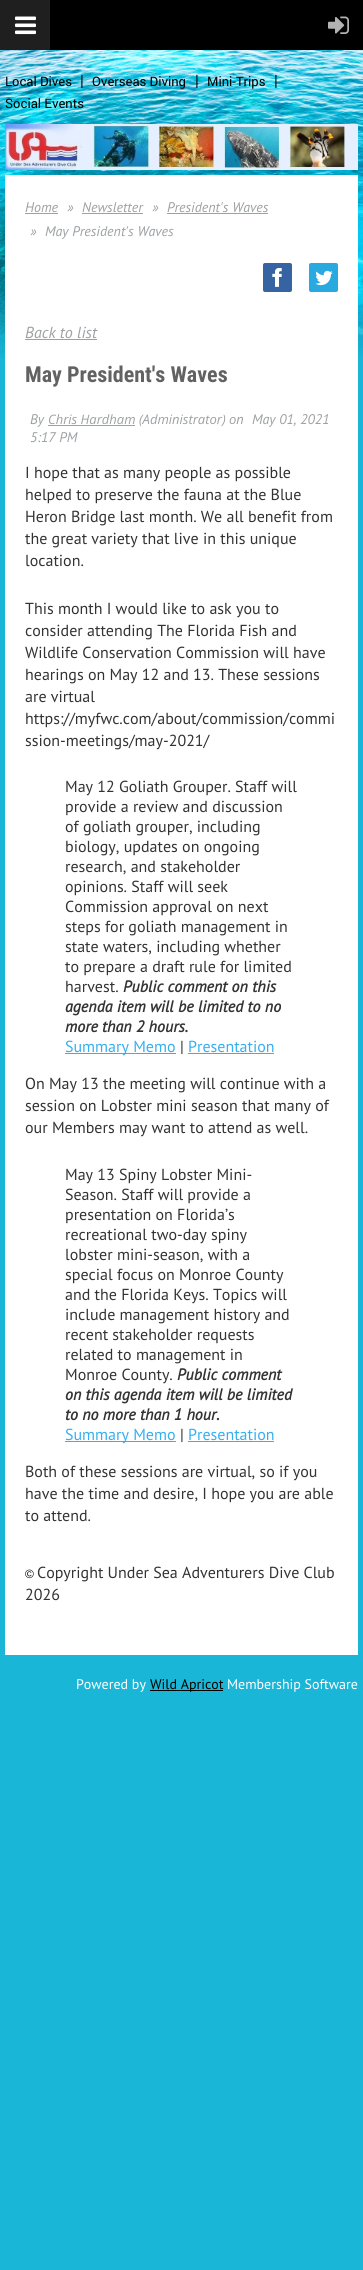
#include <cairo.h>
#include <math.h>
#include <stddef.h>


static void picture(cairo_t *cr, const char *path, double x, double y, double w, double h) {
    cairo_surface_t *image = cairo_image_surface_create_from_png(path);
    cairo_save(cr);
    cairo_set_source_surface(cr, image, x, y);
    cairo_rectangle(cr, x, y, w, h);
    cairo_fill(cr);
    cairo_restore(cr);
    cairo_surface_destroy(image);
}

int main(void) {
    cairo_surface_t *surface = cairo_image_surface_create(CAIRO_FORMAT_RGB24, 363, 2270);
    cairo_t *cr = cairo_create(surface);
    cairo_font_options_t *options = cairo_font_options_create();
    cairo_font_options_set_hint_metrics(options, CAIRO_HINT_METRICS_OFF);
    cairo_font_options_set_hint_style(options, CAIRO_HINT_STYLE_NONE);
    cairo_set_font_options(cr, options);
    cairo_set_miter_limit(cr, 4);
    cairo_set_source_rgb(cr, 0.098, 0.714, 0.847);
    cairo_paint(cr);
    picture(cr, "img1.png", 0, 50, 363, 308);
    cairo_set_source_rgb(cr, 0, 0, 0);
    cairo_rectangle(cr, 50, 0, 313, 50);
    cairo_fill(cr);
    cairo_set_source_rgb(cr, 0.122, 0.122, 0.122);
    cairo_rectangle(cr, 0, 0, 50, 50);
    cairo_fill(cr);
    picture(cr, "img2.png", 15, 16, 21, 19);
    picture(cr, "img3.png", 328, 16, 21, 18);
    cairo_select_font_face(cr, "Roboto", CAIRO_FONT_SLANT_NORMAL, CAIRO_FONT_WEIGHT_NORMAL);
    cairo_set_font_size(cr, 13);
    cairo_set_source_rgb(cr, 0, 0, 0);
    cairo_move_to(cr, 5, 86);
    cairo_show_text(cr, "Local Dives");
    cairo_select_font_face(cr, "PT Sans", CAIRO_FONT_SLANT_NORMAL, CAIRO_FONT_WEIGHT_NORMAL);
    cairo_set_font_size(cr, 16);
    cairo_move_to(cr, 80, 86);
    cairo_show_text(cr, "|");
    cairo_select_font_face(cr, "Roboto", CAIRO_FONT_SLANT_NORMAL, CAIRO_FONT_WEIGHT_NORMAL);
    cairo_set_font_size(cr, 13);
    cairo_move_to(cr, 92, 86);
    cairo_show_text(cr, "Overseas Diving");
    cairo_select_font_face(cr, "PT Sans", CAIRO_FONT_SLANT_NORMAL, CAIRO_FONT_WEIGHT_NORMAL);
    cairo_set_font_size(cr, 16);
    cairo_move_to(cr, 195, 86);
    cairo_show_text(cr, "|");
    cairo_select_font_face(cr, "Roboto", CAIRO_FONT_SLANT_NORMAL, CAIRO_FONT_WEIGHT_NORMAL);
    cairo_set_font_size(cr, 13);
    cairo_move_to(cr, 207, 86);
    cairo_show_text(cr, "Mini-Trips");
    cairo_select_font_face(cr, "PT Sans", CAIRO_FONT_SLANT_NORMAL, CAIRO_FONT_WEIGHT_NORMAL);
    cairo_set_font_size(cr, 16);
    cairo_move_to(cr, 274, 86);
    cairo_show_text(cr, "|");
    cairo_select_font_face(cr, "Roboto", CAIRO_FONT_SLANT_NORMAL, CAIRO_FONT_WEIGHT_NORMAL);
    cairo_set_font_size(cr, 13);
    cairo_move_to(cr, 5, 108);
    cairo_show_text(cr, "Social Events");
    picture(cr, "img4.png", 5, 124, 353, 46);
    cairo_set_source_rgb(cr, 1, 1, 1);
    cairo_rectangle(cr, 5, 175, 353, 1480);
    cairo_fill(cr);
    cairo_select_font_face(cr, "PT Sans", CAIRO_FONT_SLANT_ITALIC, CAIRO_FONT_WEIGHT_NORMAL);
    cairo_set_font_size(cr, 14);
    cairo_set_source_rgb(cr, 0.616, 0.631, 0.639);
    cairo_move_to(cr, 25, 212);
    cairo_show_text(cr, "Home");
    cairo_rectangle(cr, 25, 213, 33, 1);
    cairo_fill(cr);
    cairo_move_to(cr, 67, 212);
    cairo_show_text(cr, "»");
    cairo_move_to(cr, 82, 212);
    cairo_show_text(cr, "Newsletter");
    cairo_rectangle(cr, 82, 213, 61, 1);
    cairo_fill(cr);
    cairo_move_to(cr, 152, 212);
    cairo_show_text(cr, "»");
    cairo_move_to(cr, 167, 212);
    cairo_show_text(cr, "President's Waves");
    cairo_rectangle(cr, 167, 213, 101, 1);
    cairo_fill(cr);
    cairo_move_to(cr, 30, 236);
    cairo_show_text(cr, "»");
    cairo_move_to(cr, 45, 236);
    cairo_show_text(cr, "May President's Waves");
    picture(cr, "img5.png", 263, 263, 29, 29);
    picture(cr, "img6.png", 309, 263, 29, 29);
    cairo_set_font_size(cr, 16);
    cairo_move_to(cr, 25, 338);
    cairo_show_text(cr, "Back to list");
    cairo_rectangle(cr, 25, 339, 72, 1);
    cairo_fill(cr);
    cairo_select_font_face(cr, "Roboto Condensed", CAIRO_FONT_SLANT_NORMAL, CAIRO_FONT_WEIGHT_BOLD);
    cairo_set_font_size(cr, 22);
    cairo_set_source_rgb(cr, 0.384, 0.384, 0.384);
    cairo_move_to(cr, 25, 382);
    cairo_show_text(cr, "May President's Waves");
    cairo_select_font_face(cr, "PT Sans", CAIRO_FONT_SLANT_ITALIC, CAIRO_FONT_WEIGHT_NORMAL);
    cairo_set_font_size(cr, 14);
    cairo_set_source_rgb(cr, 0.616, 0.631, 0.639);
    cairo_move_to(cr, 30, 424);
    cairo_show_text(cr, "By");
    cairo_rectangle(cr, 48, 425, 87, 1);
    cairo_fill(cr);
    cairo_select_font_face(cr, "Open Sans", CAIRO_FONT_SLANT_ITALIC, CAIRO_FONT_WEIGHT_NORMAL);
    cairo_set_font_size(cr, 13);
    cairo_move_to(cr, 48, 424);
    cairo_show_text(cr, "Chris Hardham (Administrator) on");
    cairo_select_font_face(cr, "PT Sans", CAIRO_FONT_SLANT_ITALIC, CAIRO_FONT_WEIGHT_NORMAL);
    cairo_set_font_size(cr, 14);
    cairo_move_to(cr, 252, 424);
    cairo_show_text(cr, "May 01, 2021");
    cairo_move_to(cr, 30, 442);
    cairo_show_text(cr, "5:17 PM");
    cairo_select_font_face(cr, "PT Sans", CAIRO_FONT_SLANT_NORMAL, CAIRO_FONT_WEIGHT_NORMAL);
    cairo_set_font_size(cr, 16);
    cairo_set_source_rgb(cr, 0.2, 0.2, 0.2);
    cairo_move_to(cr, 25, 478);
    cairo_show_text(cr, "I hope that as many people as possible");
    cairo_move_to(cr, 25, 500);
    cairo_show_text(cr, "helped to preserve the fauna at the Blue");
    cairo_move_to(cr, 25, 522);
    cairo_show_text(cr, "Heron Bridge last month. We all benefit from");
    cairo_move_to(cr, 25, 544);
    cairo_show_text(cr, "the great variety that live in this unique");
    cairo_move_to(cr, 25, 566);
    cairo_show_text(cr, "location.");
    cairo_move_to(cr, 25, 614);
    cairo_show_text(cr, "This month I would like to ask you to");
    cairo_move_to(cr, 25, 636);
    cairo_show_text(cr, "consider attending The Florida Fish and");
    cairo_move_to(cr, 25, 658);
    cairo_show_text(cr, "Wildlife Conservation Commission will have");
    cairo_move_to(cr, 25, 680);
    cairo_show_text(cr, "hearings on May 12 and 13. These sessions");
    cairo_move_to(cr, 25, 702);
    cairo_show_text(cr, "are virtual");
    cairo_move_to(cr, 25, 724);
    cairo_show_text(cr, "https://myfwc.com/about/commission/commi");
    cairo_move_to(cr, 25, 746);
    cairo_show_text(cr, "ssion-meetings/may-2021/");
    cairo_move_to(cr, 65, 792);
    cairo_show_text(cr, "May 12 Goliath Grouper. Staff will");
    cairo_move_to(cr, 65, 812);
    cairo_show_text(cr, "provide a review and discussion");
    cairo_move_to(cr, 65, 832);
    cairo_show_text(cr, "of goliath grouper, including");
    cairo_move_to(cr, 65, 852);
    cairo_show_text(cr, "biology, updates on ongoing");
    cairo_move_to(cr, 65, 872);
    cairo_show_text(cr, "research, and stakeholder");
    cairo_move_to(cr, 65, 892);
    cairo_show_text(cr, "opinions. Staff will seek");
    cairo_move_to(cr, 65, 912);
    cairo_show_text(cr, "Commission approval on next");
    cairo_move_to(cr, 65, 932);
    cairo_show_text(cr, "steps for goliath management in");
    cairo_move_to(cr, 65, 952);
    cairo_show_text(cr, "state waters, including whether");
    cairo_move_to(cr, 65, 972);
    cairo_show_text(cr, "to prepare a draft rule for limited");
    cairo_move_to(cr, 65, 992);
    cairo_show_text(cr, "harvest.");
    cairo_select_font_face(cr, "PT Sans", CAIRO_FONT_SLANT_ITALIC, CAIRO_FONT_WEIGHT_BOLD);
    cairo_move_to(cr, 123, 992);
    cairo_show_text(cr, "Public comment on this");
    cairo_move_to(cr, 65, 1012);
    cairo_show_text(cr, "agenda item will be limited to no");
    cairo_move_to(cr, 65, 1032);
    cairo_show_text(cr, "more than 2 hours.");
    cairo_set_source_rgb(cr, 0.212, 0.686, 0.941);
    cairo_rectangle(cr, 65, 1053, 111, 1);
    cairo_fill(cr);
    cairo_select_font_face(cr, "PT Sans", CAIRO_FONT_SLANT_NORMAL, CAIRO_FONT_WEIGHT_NORMAL);
    cairo_move_to(cr, 65, 1052);
    cairo_show_text(cr, "Summary Memo");
    cairo_set_source_rgb(cr, 0.2, 0.2, 0.2);
    cairo_move_to(cr, 180, 1052);
    cairo_show_text(cr, "|");
    cairo_set_source_rgb(cr, 0.212, 0.686, 0.941);
    cairo_move_to(cr, 188, 1052);
    cairo_show_text(cr, "Presentation");
    cairo_rectangle(cr, 188, 1053, 86, 1);
    cairo_fill(cr);
    cairo_set_source_rgb(cr, 0.2, 0.2, 0.2);
    cairo_move_to(cr, 25, 1089);
    cairo_show_text(cr, "On May 13 the meeting will continue with a");
    cairo_move_to(cr, 25, 1111);
    cairo_show_text(cr, "session on Lobster mini season that many of");
    cairo_move_to(cr, 25, 1133);
    cairo_show_text(cr, "our Members may want to attend as well.");
    cairo_move_to(cr, 65, 1180);
    cairo_show_text(cr, "May 13 Spiny Lobster Mini-");
    cairo_move_to(cr, 65, 1200);
    cairo_show_text(cr, "Season. Staff will provide a");
    cairo_move_to(cr, 65, 1220);
    cairo_show_text(cr, "presentation on Florida’s");
    cairo_move_to(cr, 65, 1240);
    cairo_show_text(cr, "recreational two-day spiny");
    cairo_move_to(cr, 65, 1260);
    cairo_show_text(cr, "lobster mini-season, with a");
    cairo_move_to(cr, 65, 1280);
    cairo_show_text(cr, "special focus on Monroe County");
    cairo_move_to(cr, 65, 1300);
    cairo_show_text(cr, "and the Florida Keys. Topics will");
    cairo_move_to(cr, 65, 1320);
    cairo_show_text(cr, "include management history and");
    cairo_move_to(cr, 65, 1340);
    cairo_show_text(cr, "recent stakeholder requests");
    cairo_move_to(cr, 65, 1360);
    cairo_show_text(cr, "related to management in");
    cairo_move_to(cr, 65, 1380);
    cairo_show_text(cr, "Monroe County.");
    cairo_select_font_face(cr, "PT Sans", CAIRO_FONT_SLANT_ITALIC, CAIRO_FONT_WEIGHT_BOLD);
    cairo_move_to(cr, 177, 1380);
    cairo_show_text(cr, "Public comment");
    cairo_move_to(cr, 65, 1400);
    cairo_show_text(cr, "on this agenda item will be limited");
    cairo_move_to(cr, 65, 1420);
    cairo_show_text(cr, "to no more than 1 hour.");
    cairo_set_source_rgb(cr, 0.212, 0.686, 0.941);
    cairo_rectangle(cr, 65, 1441, 111, 1);
    cairo_fill(cr);
    cairo_select_font_face(cr, "PT Sans", CAIRO_FONT_SLANT_NORMAL, CAIRO_FONT_WEIGHT_NORMAL);
    cairo_move_to(cr, 65, 1440);
    cairo_show_text(cr, "Summary Memo");
    cairo_set_source_rgb(cr, 0.2, 0.2, 0.2);
    cairo_move_to(cr, 180, 1440);
    cairo_show_text(cr, "|");
    cairo_set_source_rgb(cr, 0.212, 0.686, 0.941);
    cairo_move_to(cr, 188, 1440);
    cairo_show_text(cr, "Presentation");
    cairo_rectangle(cr, 188, 1441, 86, 1);
    cairo_fill(cr);
    cairo_set_source_rgb(cr, 0.2, 0.2, 0.2);
    cairo_move_to(cr, 25, 1477);
    cairo_show_text(cr, "Both of these sessions are virtual, so if you");
    cairo_move_to(cr, 25, 1499);
    cairo_show_text(cr, "have the time and desire, I hope you are able");
    cairo_move_to(cr, 25, 1521);
    cairo_show_text(cr, "to attend.");
    cairo_select_font_face(cr, "Liberation Sans", CAIRO_FONT_SLANT_NORMAL, CAIRO_FONT_WEIGHT_NORMAL);
    cairo_set_font_size(cr, 12);
    cairo_set_source_rgb(cr, 0, 0, 0);
    cairo_move_to(cr, 25, 1578);
    cairo_show_text(cr, "©");
    cairo_select_font_face(cr, "PT Sans", CAIRO_FONT_SLANT_NORMAL, CAIRO_FONT_WEIGHT_NORMAL);
    cairo_set_font_size(cr, 16);
    cairo_set_source_rgb(cr, 0.2, 0.2, 0.2);
    cairo_move_to(cr, 37, 1578);
    cairo_show_text(cr, "Copyright Under Sea Adventurers Dive Club");
    cairo_move_to(cr, 25, 1600);
    cairo_show_text(cr, "2026");
    cairo_set_font_size(cr, 14);
    cairo_set_source_rgb(cr, 1, 1, 1);
    cairo_move_to(cr, 76, 1689);
    cairo_show_text(cr, "Powered by");
    cairo_set_source_rgb(cr, 0, 0, 0);
    cairo_rectangle(cr, 150, 1690, 73, 1);
    cairo_fill(cr);
    cairo_move_to(cr, 150, 1689);
    cairo_show_text(cr, "Wild Apricot");
    cairo_set_source_rgb(cr, 1, 1, 1);
    cairo_move_to(cr, 227, 1689);
    cairo_show_text(cr, "Membership Software");
    cairo_surface_write_to_png(surface, "page.png");
    cairo_font_options_destroy(options);
    cairo_destroy(cr);
    cairo_surface_destroy(surface);
    return 0;
}
